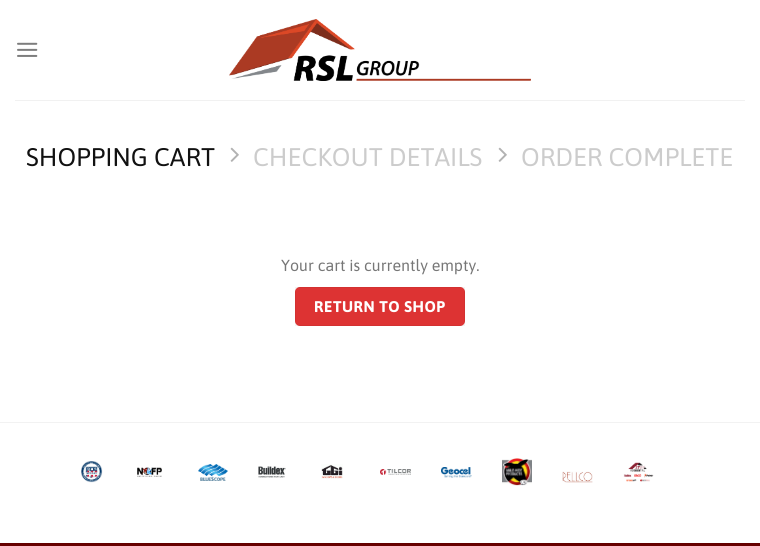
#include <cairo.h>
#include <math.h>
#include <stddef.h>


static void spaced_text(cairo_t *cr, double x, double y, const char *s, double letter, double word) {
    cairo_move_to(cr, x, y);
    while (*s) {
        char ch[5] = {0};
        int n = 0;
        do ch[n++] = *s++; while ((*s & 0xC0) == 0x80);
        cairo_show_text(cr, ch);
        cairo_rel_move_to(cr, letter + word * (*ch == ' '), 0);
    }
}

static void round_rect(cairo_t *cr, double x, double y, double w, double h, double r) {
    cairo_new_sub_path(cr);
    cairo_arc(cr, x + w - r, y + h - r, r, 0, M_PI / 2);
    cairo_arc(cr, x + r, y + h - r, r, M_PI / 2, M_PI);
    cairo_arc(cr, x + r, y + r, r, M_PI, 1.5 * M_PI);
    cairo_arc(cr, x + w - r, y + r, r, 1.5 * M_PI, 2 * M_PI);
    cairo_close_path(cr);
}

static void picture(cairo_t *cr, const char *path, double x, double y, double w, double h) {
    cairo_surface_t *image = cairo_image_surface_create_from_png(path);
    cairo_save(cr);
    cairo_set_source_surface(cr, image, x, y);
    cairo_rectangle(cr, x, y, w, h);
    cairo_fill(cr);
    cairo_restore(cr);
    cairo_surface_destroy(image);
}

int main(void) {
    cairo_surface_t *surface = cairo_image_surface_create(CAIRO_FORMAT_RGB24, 760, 546);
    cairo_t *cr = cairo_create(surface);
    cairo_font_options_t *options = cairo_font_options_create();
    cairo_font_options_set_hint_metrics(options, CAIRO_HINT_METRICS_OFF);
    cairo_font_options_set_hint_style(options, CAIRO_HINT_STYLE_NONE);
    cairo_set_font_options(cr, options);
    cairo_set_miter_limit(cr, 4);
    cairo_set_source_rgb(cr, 1, 1, 1);
    cairo_paint(cr);
    picture(cr, "img1.png", 17, 42, 21, 15);
    picture(cr, "img2.png", 229, 19, 302, 62);
    cairo_set_source_rgb(cr, 0.945, 0.945, 0.945);
    cairo_rectangle(cr, 15, 100, 730, 1);
    cairo_fill(cr);
    cairo_select_font_face(cr, "Asap", CAIRO_FONT_SLANT_NORMAL, CAIRO_FONT_WEIGHT_NORMAL);
    cairo_set_font_size(cr, 25.5);
    cairo_set_source_rgb(cr, 0.067, 0.067, 0.067);
    cairo_move_to(cr, 26, 166);
    cairo_show_text(cr, "SHOPPING CART");
    picture(cr, "img3.png", 230, 147, 9, 15);
    cairo_set_source_rgb(cr, 0.8, 0.8, 0.8);
    cairo_move_to(cr, 253, 166);
    cairo_show_text(cr, "CHECKOUT DETAILS");
    picture(cr, "img3.png", 498, 147, 9, 15);
    cairo_move_to(cr, 521, 166);
    cairo_show_text(cr, "ORDER COMPLETE");
    cairo_set_font_size(cr, 16);
    cairo_set_source_rgb(cr, 0.467, 0.467, 0.467);
    cairo_move_to(cr, 281, 271);
    cairo_show_text(cr, "Your cart is currently empty.");
    cairo_set_source_rgb(cr, 0.867, 0.2, 0.2);
    round_rect(cr, 295, 287, 170, 39, 5);
    cairo_fill(cr);
    cairo_rectangle(cr, 295.5, 287.5, 169, 38);
    cairo_set_source_rgba(cr, 0, 0, 0, 0.05);
    cairo_set_line_width(cr, 1);
    cairo_stroke(cr);
    cairo_select_font_face(cr, "Asap", CAIRO_FONT_SLANT_NORMAL, CAIRO_FONT_WEIGHT_BOLD);
    cairo_set_font_size(cr, 15.5);
    cairo_set_source_rgb(cr, 1, 1, 1);
    spaced_text(cr, 314, 312, "RETURN TO SHOP", 0.5, 0);
    cairo_set_source_rgb(cr, 0.949, 0.949, 0.949);
    cairo_rectangle(cr, 0, 422, 760, 1);
    cairo_fill(cr);
    picture(cr, "img4.png", 81, 461, 22, 22);
    picture(cr, "img5.png", 137, 467, 25, 10);
    picture(cr, "img6.png", 198, 464, 30, 17);
    picture(cr, "img7.png", 258, 466, 28, 12);
    picture(cr, "img8.png", 321, 464, 22, 15);
    picture(cr, "img9.png", 380, 469, 31, 6);
    picture(cr, "img10.png", 441, 467, 31, 11);
    picture(cr, "img11.png", 502, 458, 30, 28);
    picture(cr, "img12.png", 562, 471, 31, 12);
    picture(cr, "img13.png", 623, 462, 31, 20);
    cairo_set_source_rgb(cr, 0.408, 0, 0);
    cairo_rectangle(cr, 0, 544, 760, 2);
    cairo_fill(cr);
    cairo_set_source_rgb(cr, 0.388, 0, 0);
    cairo_rectangle(cr, 0, 543, 760, 1);
    cairo_fill(cr);
    cairo_surface_write_to_png(surface, "page.png");
    cairo_font_options_destroy(options);
    cairo_destroy(cr);
    cairo_surface_destroy(surface);
    return 0;
}
